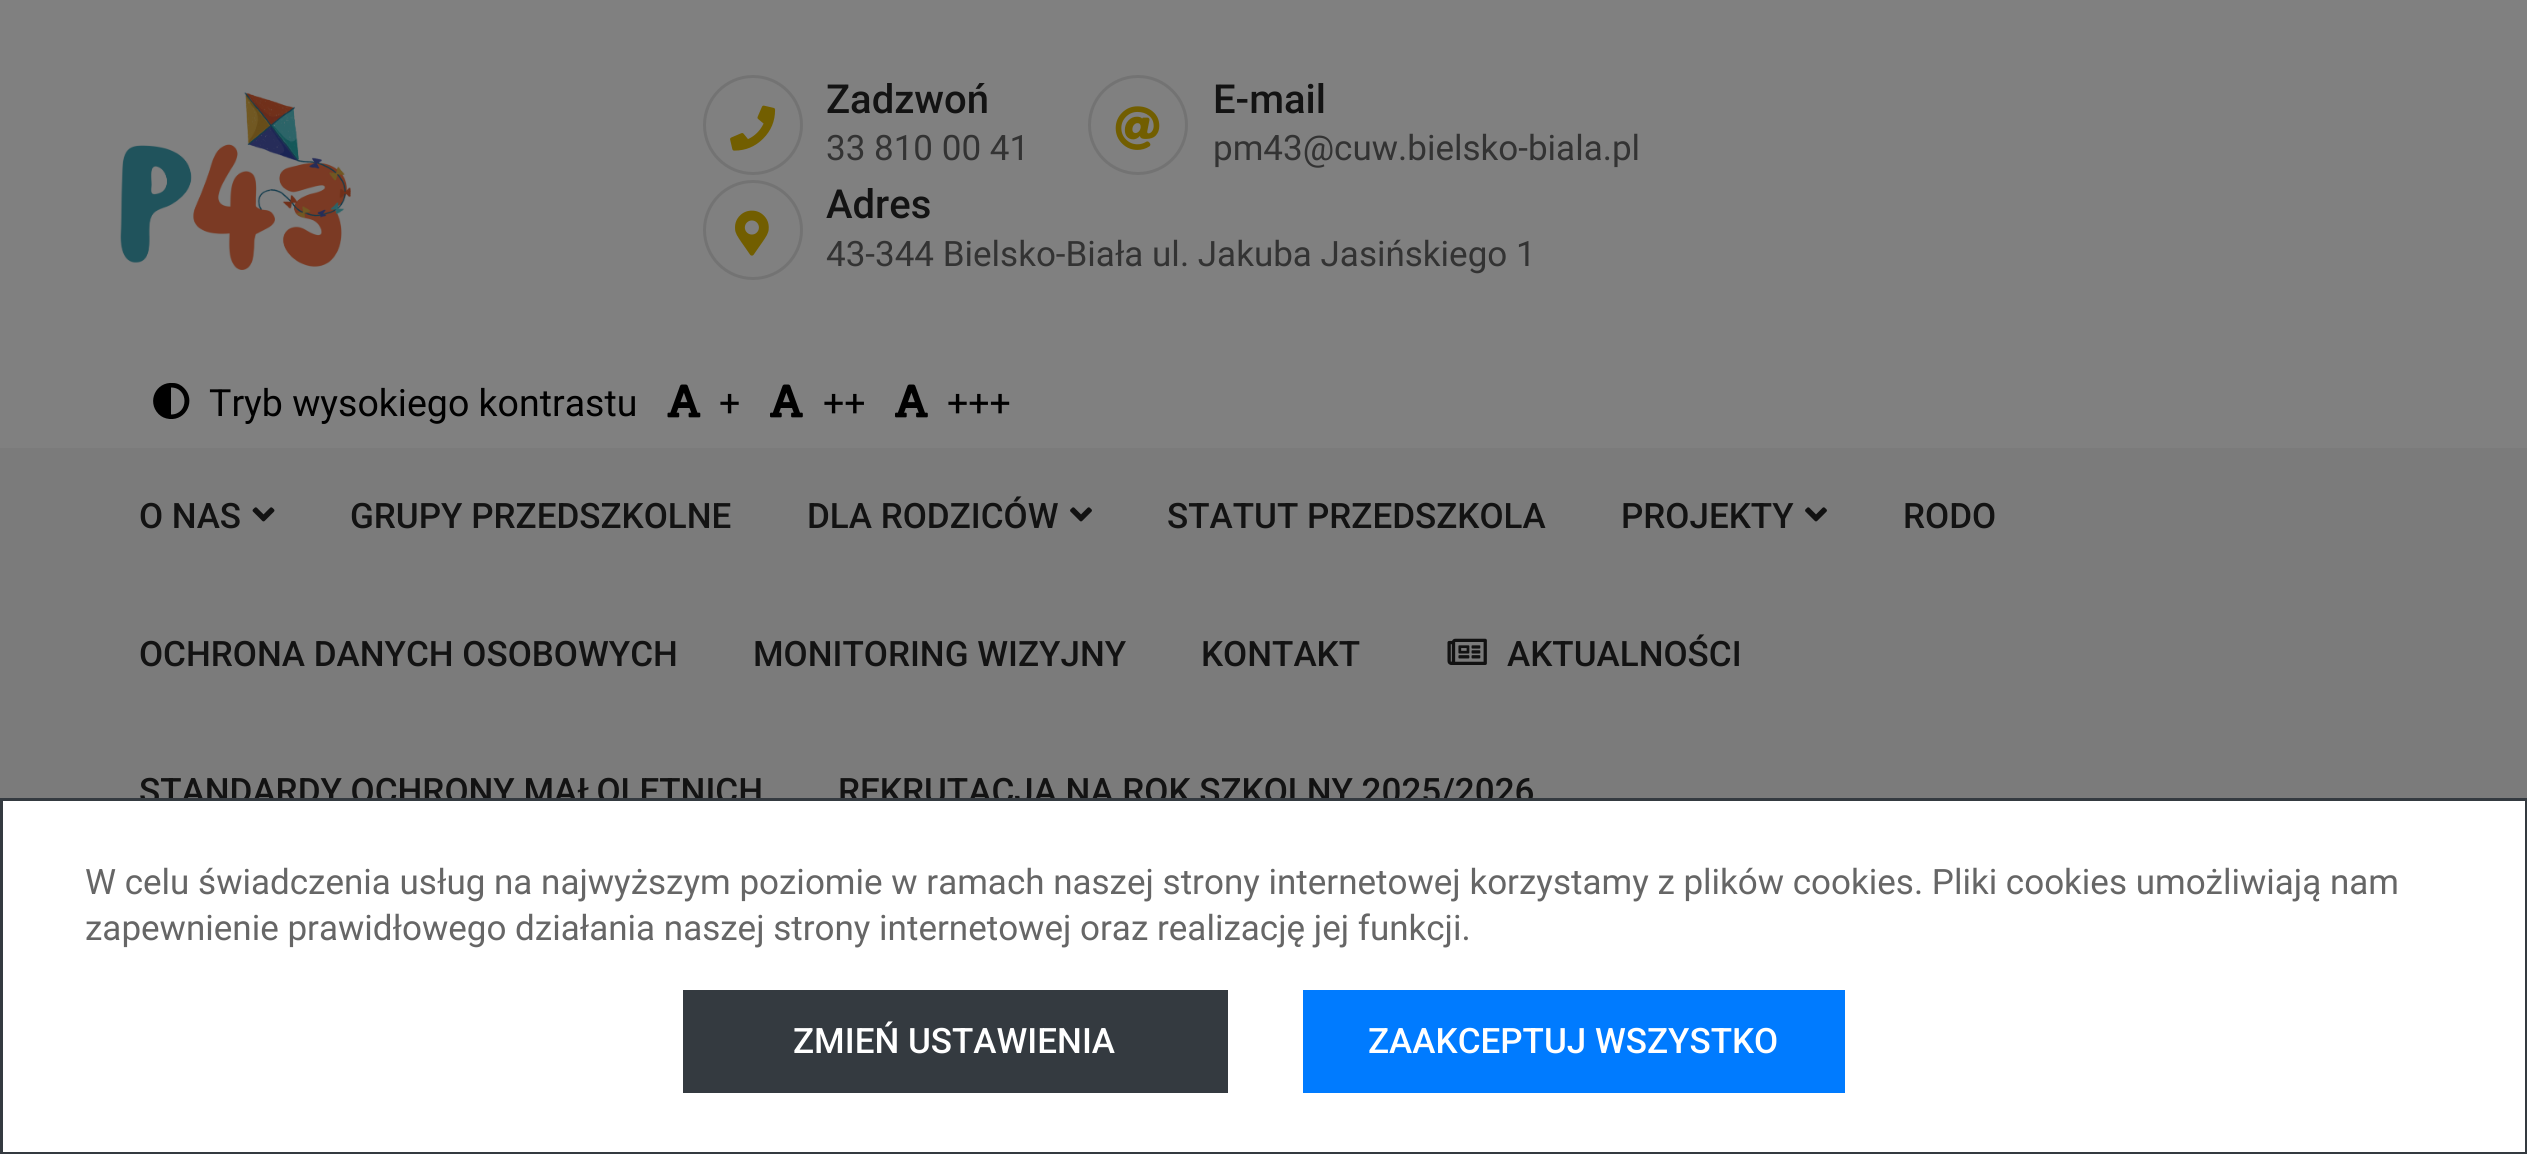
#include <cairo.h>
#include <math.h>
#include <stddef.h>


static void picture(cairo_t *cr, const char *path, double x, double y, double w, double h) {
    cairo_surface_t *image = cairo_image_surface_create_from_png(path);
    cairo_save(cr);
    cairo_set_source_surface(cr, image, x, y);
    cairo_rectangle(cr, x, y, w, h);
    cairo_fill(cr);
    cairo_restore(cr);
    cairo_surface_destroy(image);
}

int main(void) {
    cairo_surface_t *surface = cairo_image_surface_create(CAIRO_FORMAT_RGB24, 2527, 1154);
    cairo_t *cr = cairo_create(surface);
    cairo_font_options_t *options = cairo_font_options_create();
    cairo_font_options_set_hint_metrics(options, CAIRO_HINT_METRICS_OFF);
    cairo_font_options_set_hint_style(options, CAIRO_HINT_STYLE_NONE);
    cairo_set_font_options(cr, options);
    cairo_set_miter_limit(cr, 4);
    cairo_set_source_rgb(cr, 0.502, 0.502, 0.502);
    cairo_paint(cr);
    picture(cr, "img1.png", 120, 92, 231, 178);
    cairo_arc(cr, 753, 125, 48.5, 0, 2 * M_PI);
    cairo_set_source_rgb(cr, 0.451, 0.451, 0.451);
    cairo_set_line_width(cr, 3);
    cairo_stroke(cr);
    picture(cr, "img2.png", 730, 105, 46, 46);
    cairo_select_font_face(cr, "Roboto Medium", CAIRO_FONT_SLANT_NORMAL, CAIRO_FONT_WEIGHT_NORMAL);
    cairo_set_font_size(cr, 40);
    cairo_set_source_rgb(cr, 0.075, 0.075, 0.075);
    cairo_move_to(cr, 826, 113);
    cairo_show_text(cr, "Zadzwoń");
    cairo_select_font_face(cr, "Roboto", CAIRO_FONT_SLANT_NORMAL, CAIRO_FONT_WEIGHT_NORMAL);
    cairo_set_font_size(cr, 35);
    cairo_set_source_rgb(cr, 0.2, 0.2, 0.2);
    cairo_move_to(cr, 826, 160);
    cairo_show_text(cr, "33 810 00 41");
    cairo_new_path(cr);
    cairo_arc(cr, 1138, 125, 48.5, 0, 2 * M_PI);
    cairo_set_source_rgb(cr, 0.451, 0.451, 0.451);
    cairo_stroke(cr);
    picture(cr, "img3.png", 1115, 106, 45, 44);
    cairo_select_font_face(cr, "Roboto Medium", CAIRO_FONT_SLANT_NORMAL, CAIRO_FONT_WEIGHT_NORMAL);
    cairo_set_font_size(cr, 40);
    cairo_set_source_rgb(cr, 0.075, 0.075, 0.075);
    cairo_move_to(cr, 1213, 113);
    cairo_show_text(cr, "E-mail");
    cairo_select_font_face(cr, "Roboto", CAIRO_FONT_SLANT_NORMAL, CAIRO_FONT_WEIGHT_NORMAL);
    cairo_set_font_size(cr, 35);
    cairo_set_source_rgb(cr, 0.2, 0.2, 0.2);
    cairo_move_to(cr, 1213, 160);
    cairo_show_text(cr, "pm43@cuw.bielsko-biala.pl");
    cairo_new_path(cr);
    cairo_arc(cr, 753, 230, 48.5, 0, 2 * M_PI);
    cairo_set_source_rgb(cr, 0.451, 0.451, 0.451);
    cairo_stroke(cr);
    picture(cr, "img4.png", 735, 210, 34, 46);
    cairo_select_font_face(cr, "Roboto Medium", CAIRO_FONT_SLANT_NORMAL, CAIRO_FONT_WEIGHT_NORMAL);
    cairo_set_font_size(cr, 40);
    cairo_set_source_rgb(cr, 0.075, 0.075, 0.075);
    cairo_move_to(cr, 826, 218);
    cairo_show_text(cr, "Adres");
    cairo_select_font_face(cr, "Roboto", CAIRO_FONT_SLANT_NORMAL, CAIRO_FONT_WEIGHT_NORMAL);
    cairo_set_font_size(cr, 35);
    cairo_set_source_rgb(cr, 0.2, 0.2, 0.2);
    cairo_move_to(cr, 826, 266);
    cairo_show_text(cr, "43-344 Bielsko-Biała ul. Jakuba Jasińskiego 1");
    cairo_set_source_rgb(cr, 0, 0, 0);
    cairo_new_path(cr);
    cairo_move_to(cr, 158.5, 414);
    cairo_curve_to(cr, 146.5, 401.5, 156, 381.5, 173, 383);
    cairo_curve_to(cr, 177.5, 383, 181, 385, 184, 388);
    cairo_curve_to(cr, 196, 400, 186.5, 420.5, 169.5, 419);
    cairo_curve_to(cr, 165, 418.5, 161.5, 417, 158.5, 414);
    cairo_close_path(cr);
    cairo_move_to(cr, 171, 414.5);
    cairo_curve_to(cr, 189, 414.5, 189, 387.5, 171, 387.5);
    cairo_close_path(cr);
    cairo_fill(cr);
    cairo_set_font_size(cr, 37.5);
    cairo_move_to(cr, 209, 416);
    cairo_show_text(cr, "Tryb wysokiego kontrastu");
    picture(cr, "img5.png", 667, 384, 34, 34);
    cairo_move_to(cr, 719, 416);
    cairo_show_text(cr, "+");
    picture(cr, "img6.png", 770, 384, 33, 34);
    cairo_move_to(cr, 823, 416);
    cairo_show_text(cr, "++");
    picture(cr, "img6.png", 895, 384, 33, 34);
    cairo_move_to(cr, 947, 416);
    cairo_show_text(cr, "+++");
    cairo_set_source_rgb(cr, 0.482, 0.482, 0.482);
    cairo_rectangle(cr, 0, 448, 2527, 350);
    cairo_fill(cr);
    cairo_select_font_face(cr, "Roboto Medium", CAIRO_FONT_SLANT_NORMAL, CAIRO_FONT_WEIGHT_NORMAL);
    cairo_set_font_size(cr, 35);
    cairo_set_source_rgb(cr, 0.075, 0.075, 0.075);
    cairo_move_to(cr, 139, 528);
    cairo_show_text(cr, "O NAS");
    picture(cr, "img7.png", 252, 507, 23, 15);
    cairo_move_to(cr, 350, 528);
    cairo_show_text(cr, "GRUPY PRZEDSZKOLNE");
    cairo_move_to(cr, 807, 528);
    cairo_show_text(cr, "DLA RODZICÓW");
    picture(cr, "img8.png", 1070, 507, 22, 15);
    cairo_move_to(cr, 1167, 528);
    cairo_show_text(cr, "STATUT PRZEDSZKOLA");
    cairo_move_to(cr, 1621, 528);
    cairo_show_text(cr, "PROJEKTY");
    picture(cr, "img8.png", 1805, 507, 22, 15);
    cairo_move_to(cr, 1903, 528);
    cairo_show_text(cr, "RODO");
    cairo_move_to(cr, 139, 666);
    cairo_show_text(cr, "OCHRONA DANYCH OSOBOWYCH");
    cairo_move_to(cr, 753, 666);
    cairo_show_text(cr, "MONITORING WIZYJNY");
    cairo_move_to(cr, 1201, 666);
    cairo_show_text(cr, "KONTAKT");
    picture(cr, "img9.png", 1447, 638, 40, 27);
    cairo_move_to(cr, 1507, 666);
    cairo_show_text(cr, "AKTUALNOŚCI");
    cairo_move_to(cr, 139, 803);
    cairo_show_text(cr, "STANDARDY OCHRONY MAŁOLETNICH");
    cairo_move_to(cr, 838, 803);
    cairo_show_text(cr, "REKRUTACJA NA ROK SZKOLNY 2025/2026");
    cairo_set_source_rgb(cr, 1, 1, 1);
    cairo_rectangle(cr, 1.5, 799.5, 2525, 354);
    cairo_fill_preserve(cr);
    cairo_set_source_rgb(cr, 0.204, 0.227, 0.251);
    cairo_stroke(cr);
    cairo_select_font_face(cr, "Roboto", CAIRO_FONT_SLANT_NORMAL, CAIRO_FONT_WEIGHT_NORMAL);
    cairo_set_source_rgb(cr, 0.4, 0.4, 0.4);
    cairo_move_to(cr, 85, 894);
    cairo_show_text(cr, "W celu świadczenia usług na najwyższym poziomie w ramach naszej strony internetowej korzystamy z plików cookies. Pliki cookies umożliwiają nam");
    cairo_move_to(cr, 85, 940);
    cairo_show_text(cr, "zapewnienie prawidłowego działania naszej strony internetowej oraz realizację jej funkcji.");
    cairo_set_source_rgb(cr, 0.204, 0.227, 0.251);
    cairo_rectangle(cr, 683, 990, 545, 103);
    cairo_fill(cr);
    cairo_select_font_face(cr, "Roboto Medium", CAIRO_FONT_SLANT_NORMAL, CAIRO_FONT_WEIGHT_NORMAL);
    cairo_set_source_rgb(cr, 1, 1, 1);
    cairo_move_to(cr, 793, 1053);
    cairo_show_text(cr, "ZMIEŃ USTAWIENIA");
    cairo_set_source_rgb(cr, 0, 0.482, 1);
    cairo_rectangle(cr, 1303, 990, 542, 103);
    cairo_fill(cr);
    cairo_set_source_rgb(cr, 1, 1, 1);
    cairo_move_to(cr, 1368, 1053);
    cairo_show_text(cr, "ZAAKCEPTUJ WSZYSTKO");
    cairo_surface_write_to_png(surface, "page.png");
    cairo_font_options_destroy(options);
    cairo_destroy(cr);
    cairo_surface_destroy(surface);
    return 0;
}
